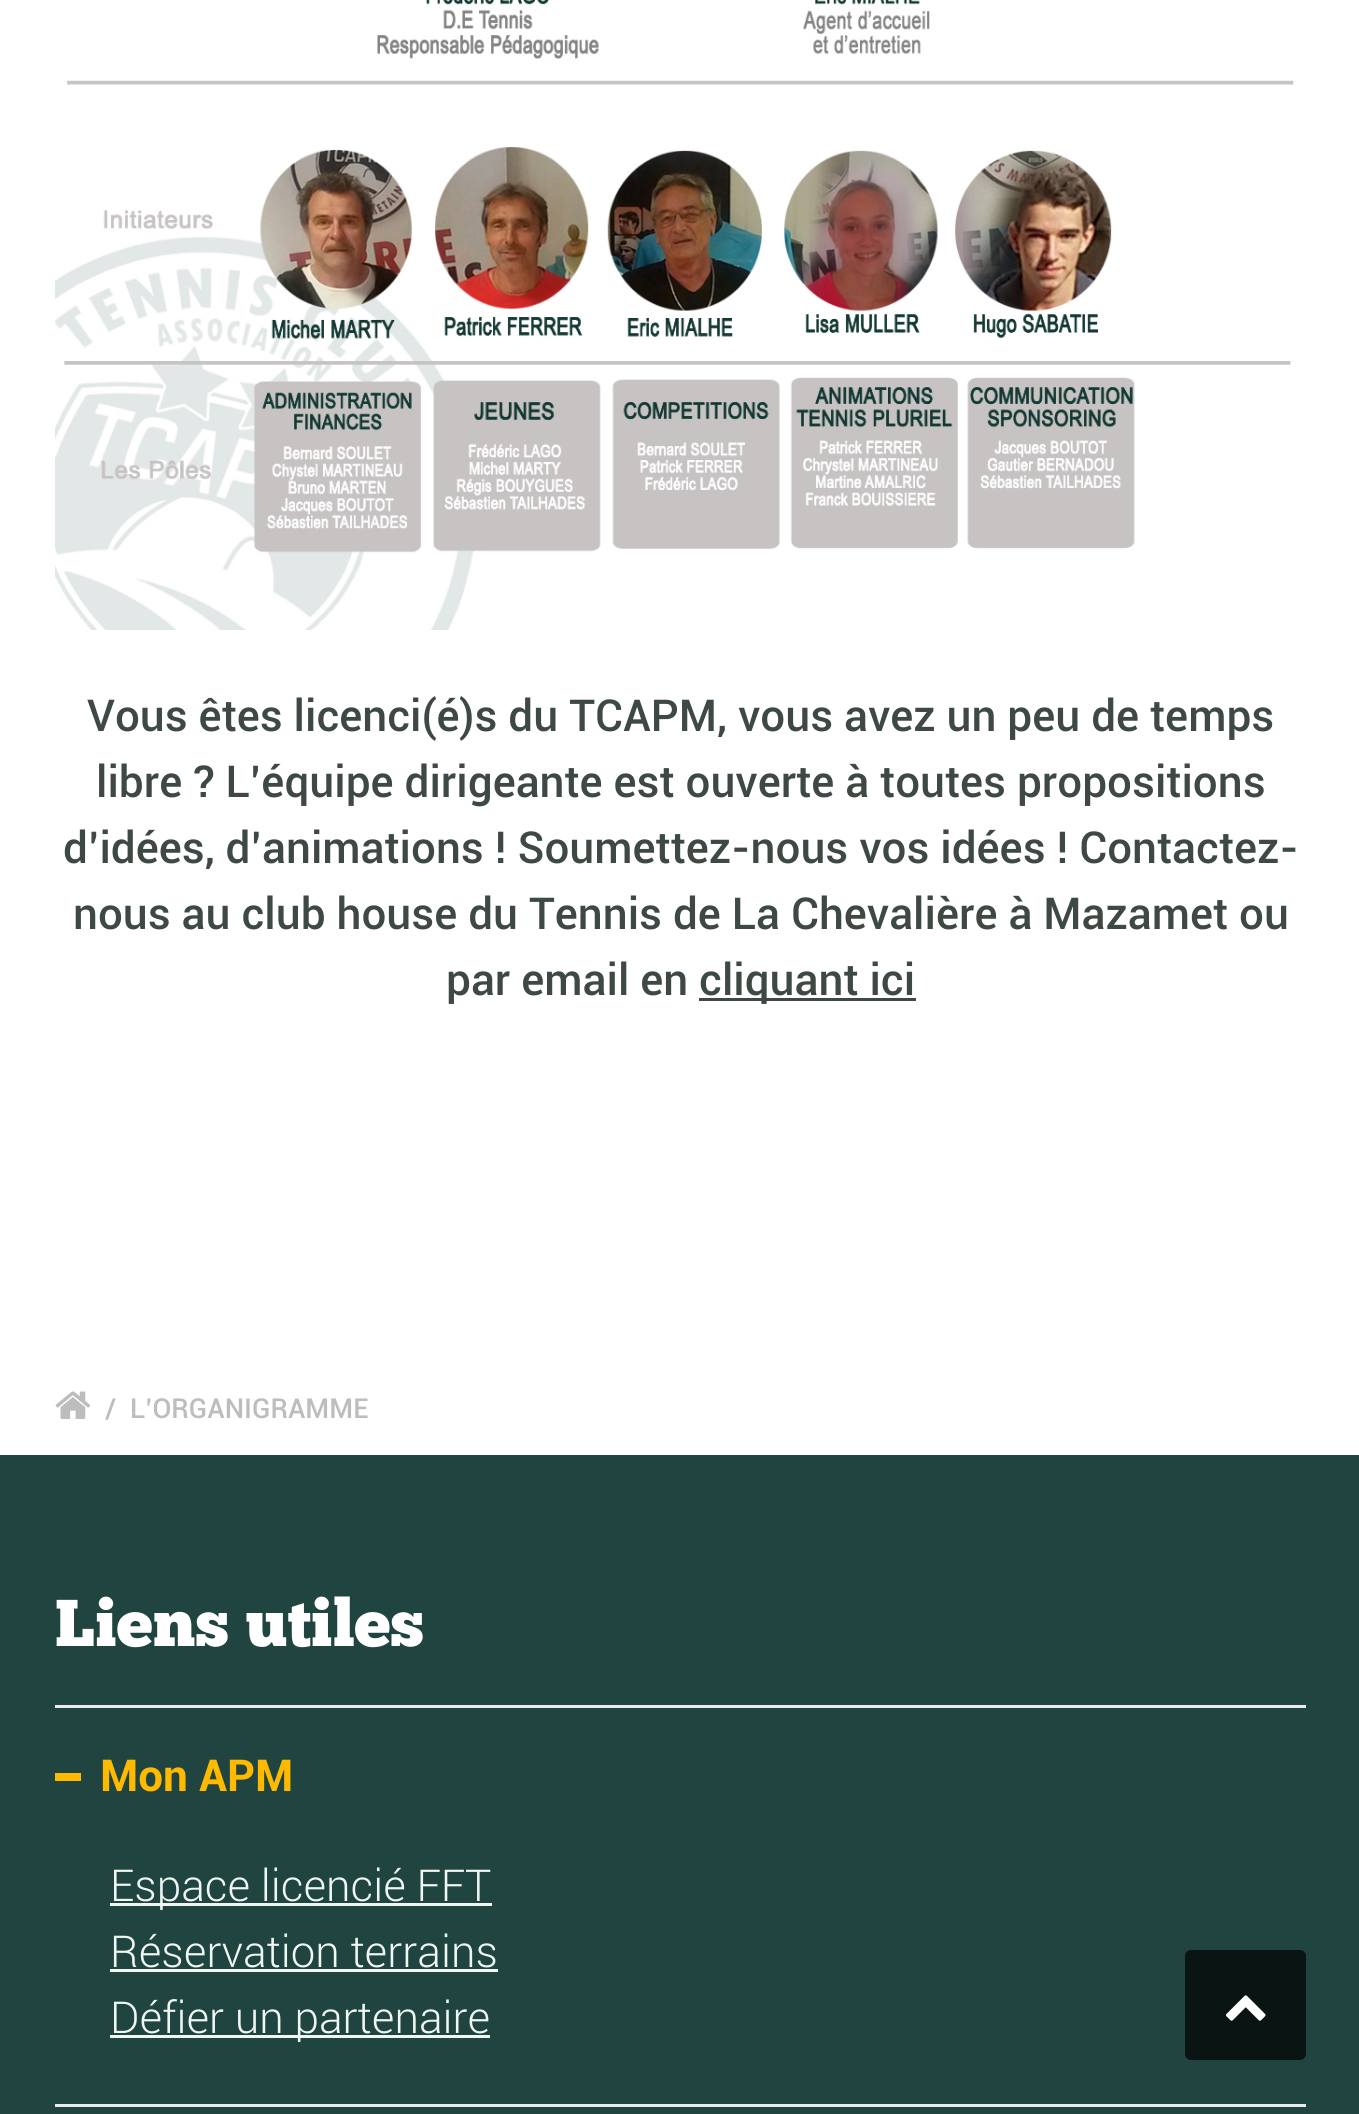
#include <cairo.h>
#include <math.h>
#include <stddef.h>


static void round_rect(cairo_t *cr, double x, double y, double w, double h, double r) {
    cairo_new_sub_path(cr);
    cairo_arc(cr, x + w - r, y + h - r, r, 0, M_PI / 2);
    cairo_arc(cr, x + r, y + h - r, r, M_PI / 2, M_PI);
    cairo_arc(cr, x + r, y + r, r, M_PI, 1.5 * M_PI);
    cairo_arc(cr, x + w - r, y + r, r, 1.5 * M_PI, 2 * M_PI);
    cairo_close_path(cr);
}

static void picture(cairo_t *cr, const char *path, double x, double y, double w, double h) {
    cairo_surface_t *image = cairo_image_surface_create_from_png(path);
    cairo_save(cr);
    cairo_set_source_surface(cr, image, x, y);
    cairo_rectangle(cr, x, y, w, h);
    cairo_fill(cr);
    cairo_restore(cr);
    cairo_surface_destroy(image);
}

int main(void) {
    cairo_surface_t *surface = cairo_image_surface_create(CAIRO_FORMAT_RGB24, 1359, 2114);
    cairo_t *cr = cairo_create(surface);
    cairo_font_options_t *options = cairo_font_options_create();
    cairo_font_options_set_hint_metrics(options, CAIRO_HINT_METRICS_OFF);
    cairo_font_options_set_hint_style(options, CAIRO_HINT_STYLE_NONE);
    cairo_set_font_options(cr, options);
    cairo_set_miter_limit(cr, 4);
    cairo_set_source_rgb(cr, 1, 1, 1);
    cairo_paint(cr);
    picture(cr, "img1.png", 55, 0, 1239, 630);
    cairo_select_font_face(cr, "Roboto Medium", CAIRO_FONT_SLANT_NORMAL, CAIRO_FONT_WEIGHT_NORMAL);
    cairo_set_font_size(cr, 44);
    cairo_set_source_rgb(cr, 0.239, 0.286, 0.259);
    cairo_move_to(cr, 87, 731);
    cairo_show_text(cr, "Vous êtes licenci(é)s du TCAPM, vous avez un peu de temps");
    cairo_move_to(cr, 96, 797);
    cairo_show_text(cr, "libre ? L’équipe dirigeante est ouverte à toutes propositions");
    cairo_move_to(cr, 63, 863);
    cairo_show_text(cr, "d’idées, d’animations ! Soumettez-nous vos idées ! Contactez-");
    cairo_move_to(cr, 73, 929);
    cairo_show_text(cr, "nous au club house du Tennis de La Chevalière à Mazamet ou");
    cairo_move_to(cr, 446, 995);
    cairo_show_text(cr, "par email en");
    cairo_rectangle(cr, 699, 998, 217, 3);
    cairo_fill(cr);
    cairo_move_to(cr, 699, 995);
    cairo_show_text(cr, "cliquant ici");
    picture(cr, "img2.png", 55, 1391, 36, 28);
    cairo_set_font_size(cr, 27.5);
    cairo_set_source_rgb(cr, 0.741, 0.741, 0.741);
    cairo_move_to(cr, 105, 1418);
    cairo_show_text(cr, "/");
    cairo_move_to(cr, 130, 1418);
    cairo_show_text(cr, "L’ORGANIGRAMME");
    cairo_set_source_rgb(cr, 0.125, 0.271, 0.251);
    cairo_rectangle(cr, 0, 1455, 1359, 659);
    cairo_fill(cr);
    cairo_select_font_face(cr, "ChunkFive", CAIRO_FONT_SLANT_NORMAL, CAIRO_FONT_WEIGHT_NORMAL);
    cairo_set_font_size(cr, 66);
    cairo_set_source_rgb(cr, 1, 1, 1);
    cairo_move_to(cr, 55, 1646);
    cairo_show_text(cr, "Liens utiles");
    cairo_set_source_rgb(cr, 0.918, 0.918, 0.918);
    cairo_rectangle(cr, 55, 1705, 1251, 3);
    cairo_fill(cr);
    cairo_rectangle(cr, 55, 2104, 1251, 3);
    cairo_fill(cr);
    cairo_set_source_rgb(cr, 1, 0.729, 0);
    cairo_rectangle(cr, 55, 1773, 26, 8);
    cairo_fill(cr);
    cairo_select_font_face(cr, "Roboto", CAIRO_FONT_SLANT_NORMAL, CAIRO_FONT_WEIGHT_BOLD);
    cairo_set_font_size(cr, 44);
    cairo_move_to(cr, 100, 1791);
    cairo_show_text(cr, "Mon APM");
    cairo_set_source_rgb(cr, 0.941, 0.965, 0.953);
    cairo_rectangle(cr, 110, 1903, 382, 3);
    cairo_fill(cr);
    cairo_select_font_face(cr, "Roboto Light", CAIRO_FONT_SLANT_NORMAL, CAIRO_FONT_WEIGHT_NORMAL);
    cairo_move_to(cr, 110, 1901);
    cairo_show_text(cr, "Espace licencié FFT");
    cairo_move_to(cr, 110, 1967);
    cairo_show_text(cr, "Réservation terrains");
    cairo_rectangle(cr, 110, 1969, 388, 3);
    cairo_fill(cr);
    cairo_rectangle(cr, 110, 2035, 380, 3);
    cairo_fill(cr);
    cairo_move_to(cr, 110, 2033);
    cairo_show_text(cr, "Défier un partenaire");
    cairo_set_source_rgb(cr, 0.039, 0.082, 0.075);
    round_rect(cr, 1185, 1950, 121, 110, 6);
    cairo_fill(cr);
    picture(cr, "img3.png", 1226, 1995, 40, 26);
    cairo_surface_write_to_png(surface, "page.png");
    cairo_font_options_destroy(options);
    cairo_destroy(cr);
    cairo_surface_destroy(surface);
    return 0;
}
